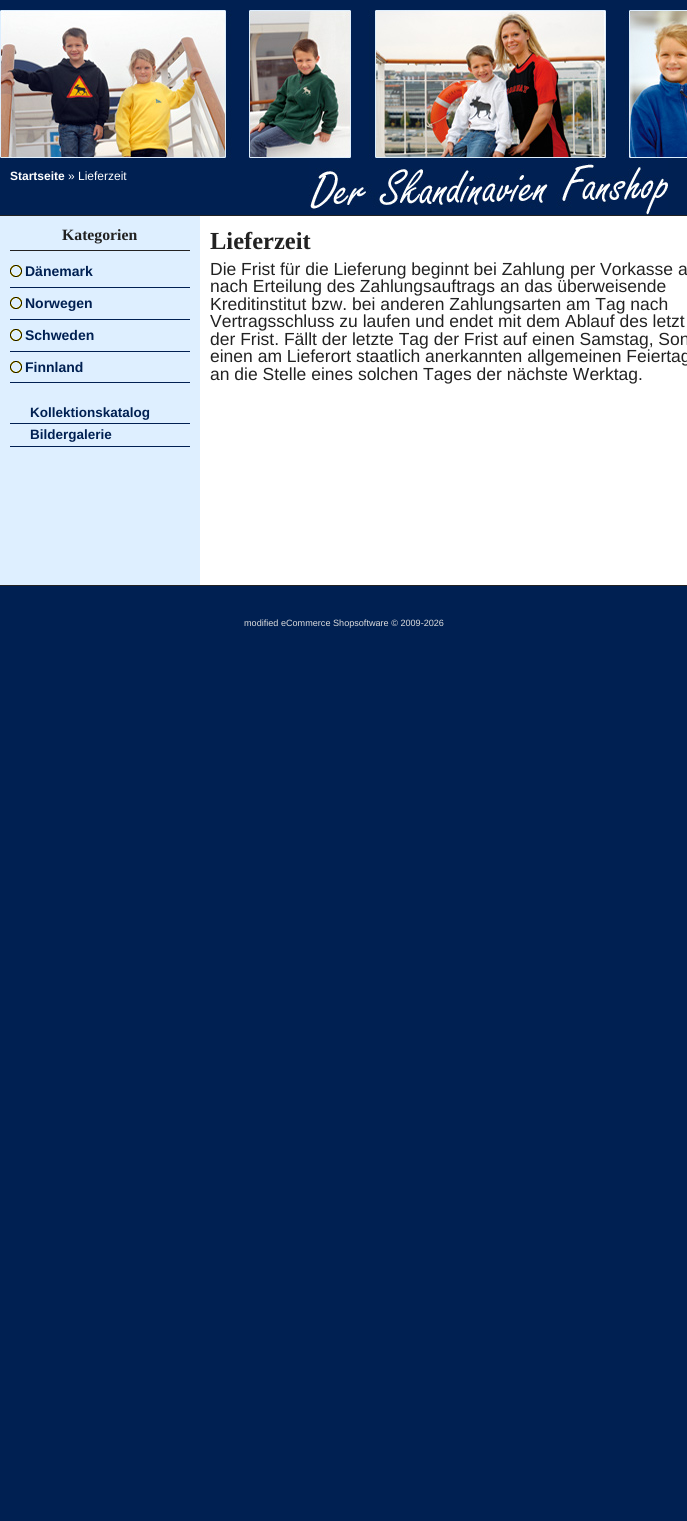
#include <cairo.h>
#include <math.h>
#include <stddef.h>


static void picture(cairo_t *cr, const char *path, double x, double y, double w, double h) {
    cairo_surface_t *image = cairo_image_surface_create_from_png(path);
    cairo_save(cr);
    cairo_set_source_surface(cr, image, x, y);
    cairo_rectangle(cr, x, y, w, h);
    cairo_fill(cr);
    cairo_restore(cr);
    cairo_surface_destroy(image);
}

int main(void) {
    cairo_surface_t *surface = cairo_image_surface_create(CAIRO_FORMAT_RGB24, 687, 1521);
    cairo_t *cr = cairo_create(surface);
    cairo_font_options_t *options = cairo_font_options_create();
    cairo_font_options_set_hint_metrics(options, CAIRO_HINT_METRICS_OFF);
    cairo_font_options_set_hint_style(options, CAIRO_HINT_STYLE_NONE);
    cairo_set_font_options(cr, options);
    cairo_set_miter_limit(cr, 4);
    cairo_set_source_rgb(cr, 0, 0.125, 0.322);
    cairo_paint(cr);
    picture(cr, "img1.png", 0, 10, 687, 150);
    cairo_select_font_face(cr, "Liberation Sans", CAIRO_FONT_SLANT_NORMAL, CAIRO_FONT_WEIGHT_BOLD);
    cairo_set_font_size(cr, 12);
    cairo_set_source_rgb(cr, 1, 1, 1);
    cairo_move_to(cr, 10, 180);
    cairo_show_text(cr, "Startseite");
    cairo_select_font_face(cr, "Liberation Sans", CAIRO_FONT_SLANT_NORMAL, CAIRO_FONT_WEIGHT_NORMAL);
    cairo_move_to(cr, 68, 180);
    cairo_show_text(cr, "»");
    cairo_move_to(cr, 78, 180);
    cairo_show_text(cr, "Lieferzeit");
    picture(cr, "img2.png", 309, 160, 359, 55);
    cairo_rectangle(cr, 200, 216, 487, 369);
    cairo_fill(cr);
    cairo_set_source_rgb(cr, 0.871, 0.937, 1);
    cairo_rectangle(cr, 0, 216, 200, 369);
    cairo_fill(cr);
    cairo_set_source_rgb(cr, 0.133, 0.133, 0.133);
    cairo_rectangle(cr, 0, 215, 687, 1);
    cairo_fill(cr);
    cairo_rectangle(cr, 10, 250, 180, 1);
    cairo_fill(cr);
    cairo_select_font_face(cr, "Liberation Serif", CAIRO_FONT_SLANT_NORMAL, CAIRO_FONT_WEIGHT_BOLD);
    cairo_set_font_size(cr, 15.75);
    cairo_move_to(cr, 62, 240);
    cairo_show_text(cr, "Kategorien");
    picture(cr, "img3.png", 10, 265, 12, 12);
    cairo_set_source_rgb(cr, 0, 0.125, 0.322);
    cairo_rectangle(cr, 10, 287, 180, 1);
    cairo_fill(cr);
    cairo_select_font_face(cr, "Liberation Sans", CAIRO_FONT_SLANT_NORMAL, CAIRO_FONT_WEIGHT_BOLD);
    cairo_set_font_size(cr, 14);
    cairo_move_to(cr, 25, 276);
    cairo_show_text(cr, "Dänemark");
    picture(cr, "img3.png", 10, 297, 12, 12);
    cairo_rectangle(cr, 10, 319, 180, 1);
    cairo_fill(cr);
    cairo_move_to(cr, 25, 308);
    cairo_show_text(cr, "Norwegen");
    picture(cr, "img3.png", 10, 329, 12, 12);
    cairo_rectangle(cr, 10, 351, 180, 1);
    cairo_fill(cr);
    cairo_move_to(cr, 25, 340);
    cairo_show_text(cr, "Schweden");
    picture(cr, "img3.png", 10, 361, 12, 12);
    cairo_rectangle(cr, 10, 382, 180, 1);
    cairo_fill(cr);
    cairo_move_to(cr, 25, 372);
    cairo_show_text(cr, "Finnland");
    cairo_rectangle(cr, 10, 423, 180, 1);
    cairo_fill(cr);
    cairo_set_font_size(cr, 13.5);
    cairo_move_to(cr, 30, 417);
    cairo_show_text(cr, "Kollektionskatalog");
    cairo_rectangle(cr, 10, 446, 180, 1);
    cairo_fill(cr);
    cairo_move_to(cr, 30, 439);
    cairo_show_text(cr, "Bildergalerie");
    cairo_select_font_face(cr, "Liberation Serif", CAIRO_FONT_SLANT_NORMAL, CAIRO_FONT_WEIGHT_BOLD);
    cairo_set_font_size(cr, 24.5);
    cairo_set_source_rgb(cr, 0.133, 0.133, 0.133);
    cairo_move_to(cr, 210, 249);
    cairo_show_text(cr, "Lieferzeit");
    cairo_select_font_face(cr, "Liberation Sans", CAIRO_FONT_SLANT_NORMAL, CAIRO_FONT_WEIGHT_NORMAL);
    cairo_set_font_size(cr, 17.5);
    cairo_move_to(cr, 210, 275);
    cairo_show_text(cr, "Die Frist für die Lieferung beginnt bei Zahlung per Vorkasse a");
    cairo_move_to(cr, 210, 292);
    cairo_show_text(cr, "nach Erteilung des Zahlungsauftrags an das überweisende");
    cairo_move_to(cr, 210, 310);
    cairo_show_text(cr, "Kreditinstitut bzw. bei anderen Zahlungsarten am Tag nach");
    cairo_move_to(cr, 210, 327);
    cairo_show_text(cr, "Vertragsschluss zu laufen und endet mit dem Ablauf des letzt");
    cairo_move_to(cr, 210, 345);
    cairo_show_text(cr, "der Frist. Fällt der letzte Tag der Frist auf einen Samstag, Son");
    cairo_move_to(cr, 210, 362);
    cairo_show_text(cr, "einen am Lieferort staatlich anerkannten allgemeinen Feiertag");
    cairo_move_to(cr, 210, 380);
    cairo_show_text(cr, "an die Stelle eines solchen Tages der nächste Werktag.");
    cairo_rectangle(cr, 0, 585, 687, 1);
    cairo_fill(cr);
    cairo_set_font_size(cr, 9.1);
    cairo_set_source_rgb(cr, 0.867, 0.867, 0.867);
    cairo_move_to(cr, 244, 626);
    cairo_show_text(cr, "modified eCommerce Shopsoftware © 2009-2026");
    cairo_surface_write_to_png(surface, "page.png");
    cairo_font_options_destroy(options);
    cairo_destroy(cr);
    cairo_surface_destroy(surface);
    return 0;
}
